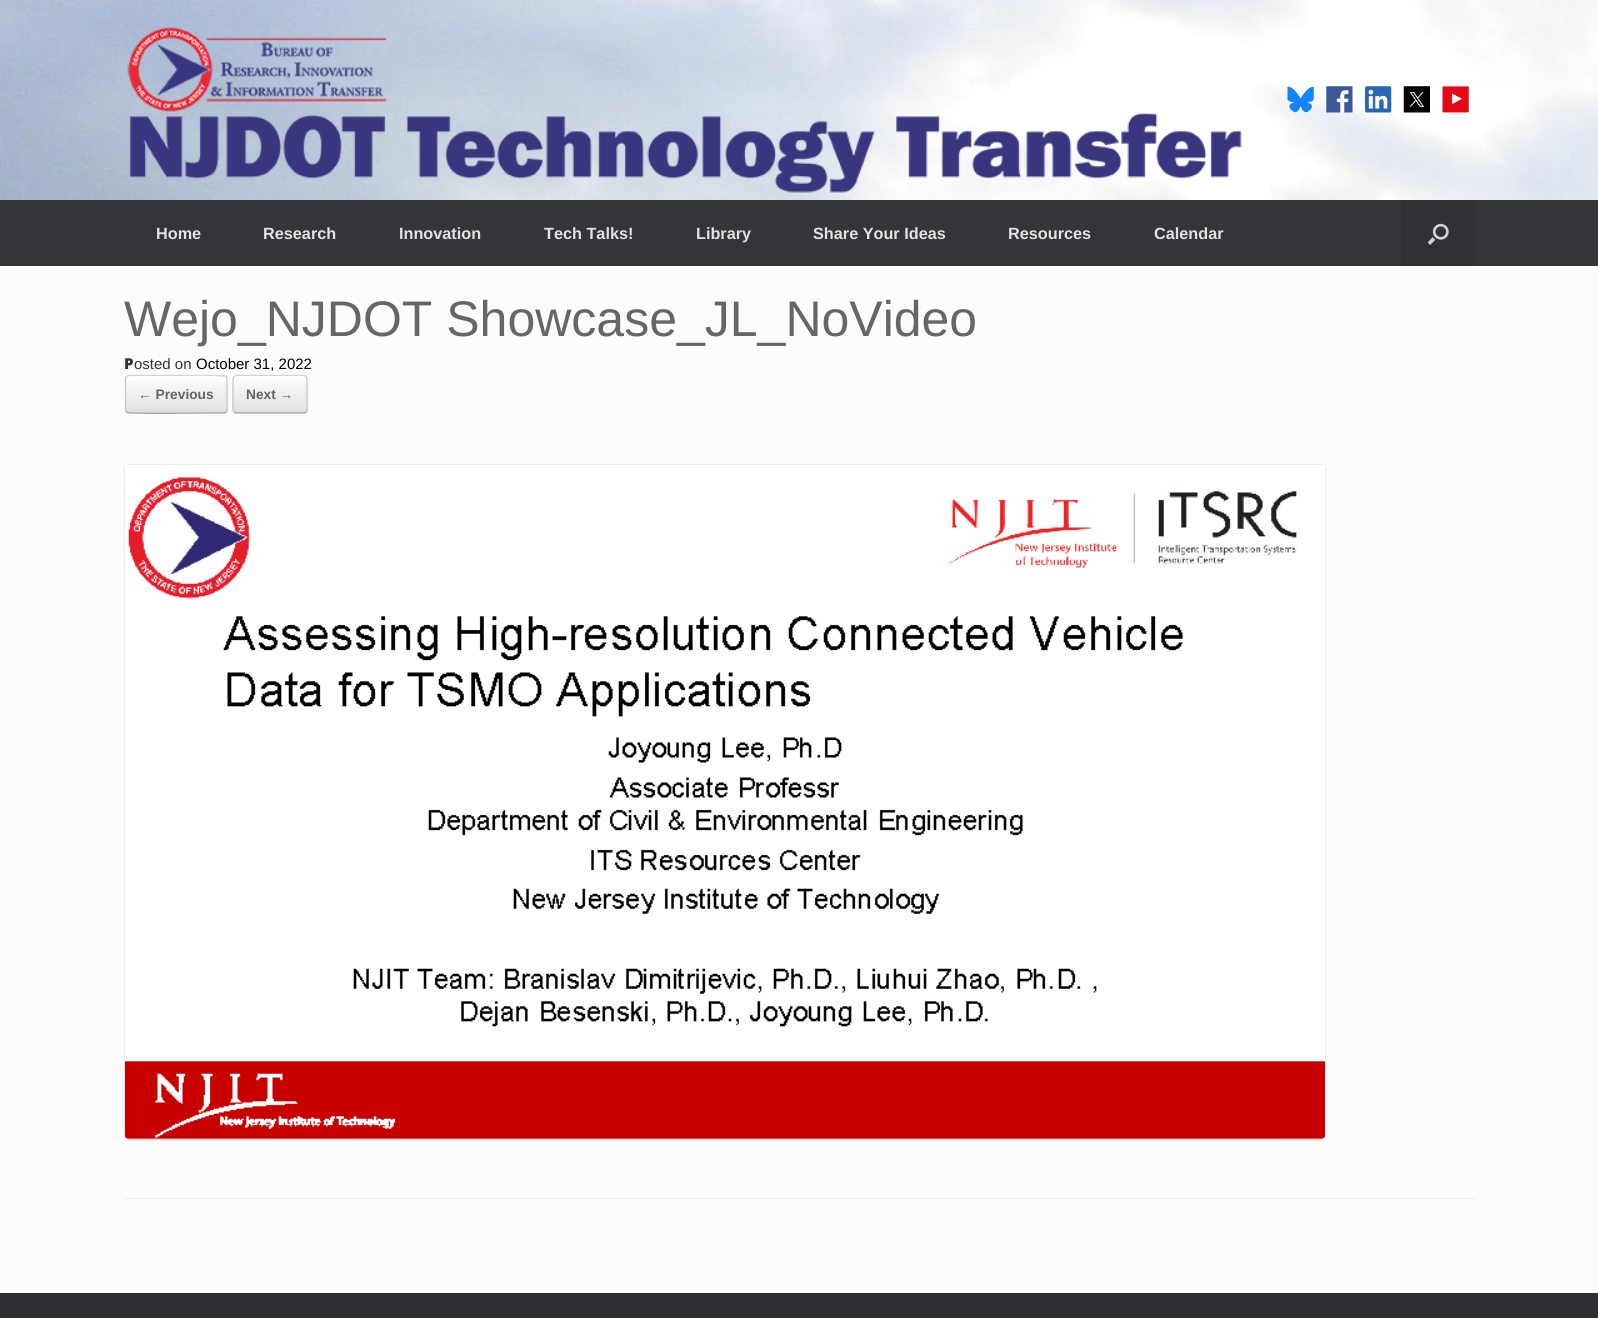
#include <cairo.h>
#include <math.h>
#include <stddef.h>


static void round_rect(cairo_t *cr, double x, double y, double w, double h, double r) {
    cairo_new_sub_path(cr);
    cairo_arc(cr, x + w - r, y + h - r, r, 0, M_PI / 2);
    cairo_arc(cr, x + r, y + h - r, r, M_PI / 2, M_PI);
    cairo_arc(cr, x + r, y + r, r, M_PI, 1.5 * M_PI);
    cairo_arc(cr, x + w - r, y + r, r, 1.5 * M_PI, 2 * M_PI);
    cairo_close_path(cr);
}

static void shadow(cairo_t *cr, double x, double y, double w, double h, double r, double blur, double alpha) {
    cairo_push_group_with_content(cr, CAIRO_CONTENT_ALPHA);
    cairo_set_operator(cr, CAIRO_OPERATOR_SOURCE);
    for (int i = 15; i >= -15 && fmin(w, h) + blur * i / 3 > 0; i -= 2) {
        double e = blur * i / 6;
        cairo_set_source_rgba(cr, 0, 0, 0, alpha * erfc((i - 1) / 8.5) / 2);
        round_rect(cr, x - e, y - e, w + 2 * e, h + 2 * e, fmax(0, fmin(r + e + blur * .6, fmin(w, h) / 2 + e)));
        cairo_fill(cr);
    }
    cairo_pattern_t *soft = cairo_pop_group(cr);
    cairo_mask(cr, soft);
    cairo_pattern_destroy(soft);
}

static void picture(cairo_t *cr, const char *path, double x, double y, double w, double h) {
    cairo_surface_t *image = cairo_image_surface_create_from_png(path);
    cairo_save(cr);
    cairo_set_source_surface(cr, image, x, y);
    cairo_rectangle(cr, x, y, w, h);
    cairo_fill(cr);
    cairo_restore(cr);
    cairo_surface_destroy(image);
}

int main(void) {
    cairo_surface_t *surface = cairo_image_surface_create(CAIRO_FORMAT_RGB24, 1598, 1318);
    cairo_t *cr = cairo_create(surface);
    cairo_font_options_t *options = cairo_font_options_create();
    cairo_font_options_set_hint_metrics(options, CAIRO_HINT_METRICS_OFF);
    cairo_font_options_set_hint_style(options, CAIRO_HINT_STYLE_NONE);
    cairo_set_font_options(cr, options);
    cairo_set_miter_limit(cr, 4);
    cairo_pattern_t *gradient;
    cairo_set_source_rgb(cr, 0.184, 0.188, 0.2);
    cairo_paint(cr);
    picture(cr, "img1.png", 0, 0, 1598, 200);
    picture(cr, "img2.png", 127, 27, 1115, 166);
    picture(cr, "img3.png", 1287, 86, 27, 27);
    picture(cr, "img4.png", 1326, 86, 27, 27);
    picture(cr, "img5.png", 1365, 86, 27, 27);
    picture(cr, "img6.png", 1403, 86, 27, 27);
    picture(cr, "img7.png", 1442, 86, 27, 27);
    cairo_set_source_rgb(cr, 0.204, 0.208, 0.22);
    cairo_rectangle(cr, 0, 200, 1598, 66);
    cairo_fill(cr);
    cairo_select_font_face(cr, "Liberation Sans", CAIRO_FONT_SLANT_NORMAL, CAIRO_FONT_WEIGHT_BOLD);
    cairo_set_font_size(cr, 16.25);
    cairo_set_source_rgb(cr, 0.886, 0.886, 0.886);
    cairo_move_to(cr, 156, 239);
    cairo_show_text(cr, "Home");
    cairo_move_to(cr, 263, 239);
    cairo_show_text(cr, "Research");
    cairo_move_to(cr, 399, 239);
    cairo_show_text(cr, "Innovation");
    cairo_move_to(cr, 544, 239);
    cairo_show_text(cr, "Tech Talks!");
    cairo_move_to(cr, 696, 239);
    cairo_show_text(cr, "Library");
    cairo_move_to(cr, 813, 239);
    cairo_show_text(cr, "Share Your Ideas");
    cairo_move_to(cr, 1008, 239);
    cairo_show_text(cr, "Resources");
    cairo_move_to(cr, 1154, 239);
    cairo_show_text(cr, "Calendar");
    cairo_set_source_rgb(cr, 0.188, 0.192, 0.204);
    cairo_rectangle(cr, 1401, 200, 74, 66);
    cairo_fill(cr);
    picture(cr, "img8.png", 1427, 223, 22, 22);
    cairo_set_source_rgb(cr, 0.988, 0.988, 0.988);
    cairo_rectangle(cr, 0, 266, 1598, 1027);
    cairo_fill(cr);
    cairo_set_source_rgb(cr, 0.933, 0.933, 0.933);
    cairo_rectangle(cr, 125, 1198, 1350, 1);
    cairo_fill(cr);
    cairo_select_font_face(cr, "Liberation Sans", CAIRO_FONT_SLANT_NORMAL, CAIRO_FONT_WEIGHT_NORMAL);
    cairo_set_font_size(cr, 50);
    cairo_set_source_rgb(cr, 0.4, 0.4, 0.4);
    cairo_move_to(cr, 124, 336);
    cairo_show_text(cr, "Wejo_NJDOT Showcase_JL_NoVideo");
    cairo_select_font_face(cr, "Noto Sans Black", CAIRO_FONT_SLANT_NORMAL, CAIRO_FONT_WEIGHT_NORMAL);
    cairo_set_font_size(cr, 15);
    cairo_set_source_rgb(cr, 0.2, 0.2, 0.2);
    cairo_move_to(cr, 124, 369);
    cairo_show_text(cr, "P");
    cairo_select_font_face(cr, "Liberation Sans", CAIRO_FONT_SLANT_NORMAL, CAIRO_FONT_WEIGHT_NORMAL);
    cairo_move_to(cr, 134, 369);
    cairo_show_text(cr, "osted on");
    cairo_set_source_rgb(cr, 0, 0, 0);
    cairo_move_to(cr, 196, 369);
    cairo_show_text(cr, "October 31, 2022");
    cairo_save(cr);
    round_rect(cr, 125, 375, 103, 39, 4);
    cairo_clip(cr);
    gradient = cairo_pattern_create_linear(126, 376, 126, 340);
    cairo_pattern_add_color_stop_rgba(gradient, 0, 0.875, 0.875, 0.875, 1);
    cairo_pattern_add_color_stop_rgba(gradient, 1, 1, 1, 1, 1);
    cairo_set_source(cr, gradient);
    cairo_pattern_destroy(gradient);
    cairo_rectangle(cr, 125, 375, 103, 1);
    cairo_fill(cr);
    gradient = cairo_pattern_create_linear(126, 413, 126, 376);
    cairo_pattern_add_color_stop_rgba(gradient, 0, 0.875, 0.875, 0.875, 1);
    cairo_pattern_add_color_stop_rgba(gradient, 1, 1, 1, 1, 1);
    cairo_set_source(cr, gradient);
    cairo_pattern_destroy(gradient);
    cairo_rectangle(cr, 125, 376, 103, 37);
    cairo_fill(cr);
    gradient = cairo_pattern_create_linear(126, 449, 126, 413);
    cairo_pattern_add_color_stop_rgba(gradient, 0, 0.875, 0.875, 0.875, 1);
    cairo_pattern_add_color_stop_rgba(gradient, 1, 1, 1, 1, 1);
    cairo_set_source(cr, gradient);
    cairo_pattern_destroy(gradient);
    cairo_rectangle(cr, 125, 413, 103, 1);
    cairo_fill(cr);
    cairo_restore(cr);
    cairo_new_path(cr);
    cairo_move_to(cr, 126.5, 376.5);
    cairo_line_to(cr, 129, 375.5);
    cairo_line_to(cr, 144.5, 375.5);
    cairo_curve_to(cr, 153, 375.5, 223.5, 374.5, 225.5, 376.5);
    cairo_line_to(cr, 226, 376.5);
    cairo_set_source_rgb(cr, 0.824, 0.824, 0.824);
    cairo_set_line_width(cr, 1.2);
    cairo_stroke(cr);
    cairo_new_path(cr);
    cairo_move_to(cr, 226, 376.5);
    cairo_curve_to(cr, 226.5, 377, 227, 378, 227, 379);
    cairo_line_to(cr, 227, 410);
    cairo_curve_to(cr, 227, 411, 226.5, 411.5, 226, 412);
    cairo_set_source_rgb(cr, 0.765, 0.765, 0.765);
    cairo_stroke(cr);
    cairo_new_path(cr);
    cairo_move_to(cr, 226, 412);
    cairo_line_to(cr, 224, 413);
    cairo_line_to(cr, 208, 413);
    cairo_curve_to(cr, 199.5, 413, 129, 414, 127, 412.5);
    cairo_line_to(cr, 126.5, 412);
    cairo_set_source_rgb(cr, 0.624, 0.624, 0.624);
    cairo_stroke(cr);
    cairo_new_path(cr);
    cairo_move_to(cr, 126.5, 412);
    cairo_curve_to(cr, 126, 411.5, 125.5, 411, 125.5, 410);
    cairo_line_to(cr, 125.5, 379);
    cairo_curve_to(cr, 125.5, 378, 126, 377, 126.5, 376.5);
    cairo_set_source_rgb(cr, 0.765, 0.765, 0.765);
    cairo_stroke(cr);
    cairo_select_font_face(cr, "Liberation Sans", CAIRO_FONT_SLANT_NORMAL, CAIRO_FONT_WEIGHT_BOLD);
    cairo_set_font_size(cr, 13.75);
    cairo_set_source_rgb(cr, 0.4, 0.4, 0.4);
    cairo_move_to(cr, 138, 399);
    cairo_show_text(cr, "← Previous");
    cairo_save(cr);
    round_rect(cr, 233, 375, 75, 39, 4);
    cairo_clip(cr);
    gradient = cairo_pattern_create_linear(234, 376, 234, 340);
    cairo_pattern_add_color_stop_rgba(gradient, 0, 0.875, 0.875, 0.875, 1);
    cairo_pattern_add_color_stop_rgba(gradient, 1, 1, 1, 1, 1);
    cairo_set_source(cr, gradient);
    cairo_pattern_destroy(gradient);
    cairo_rectangle(cr, 233, 375, 75, 1);
    cairo_fill(cr);
    gradient = cairo_pattern_create_linear(234, 413, 234, 376);
    cairo_pattern_add_color_stop_rgba(gradient, 0, 0.875, 0.875, 0.875, 1);
    cairo_pattern_add_color_stop_rgba(gradient, 1, 1, 1, 1, 1);
    cairo_set_source(cr, gradient);
    cairo_pattern_destroy(gradient);
    cairo_rectangle(cr, 233, 376, 75, 37);
    cairo_fill(cr);
    gradient = cairo_pattern_create_linear(234, 449, 234, 413);
    cairo_pattern_add_color_stop_rgba(gradient, 0, 0.875, 0.875, 0.875, 1);
    cairo_pattern_add_color_stop_rgba(gradient, 1, 1, 1, 1, 1);
    cairo_set_source(cr, gradient);
    cairo_pattern_destroy(gradient);
    cairo_rectangle(cr, 233, 413, 75, 1);
    cairo_fill(cr);
    cairo_restore(cr);
    cairo_new_path(cr);
    cairo_move_to(cr, 234, 376.5);
    cairo_line_to(cr, 236, 375.5);
    cairo_line_to(cr, 304, 375.5);
    cairo_line_to(cr, 306, 376.5);
    cairo_set_source_rgb(cr, 0.824, 0.824, 0.824);
    cairo_stroke(cr);
    cairo_new_path(cr);
    cairo_move_to(cr, 306, 376.5);
    cairo_curve_to(cr, 306.5, 377, 307, 378, 307, 379);
    cairo_line_to(cr, 307, 410);
    cairo_curve_to(cr, 307, 411, 306.5, 411.5, 306, 412);
    cairo_set_source_rgb(cr, 0.765, 0.765, 0.765);
    cairo_stroke(cr);
    cairo_new_path(cr);
    cairo_move_to(cr, 306, 412);
    cairo_line_to(cr, 304, 413);
    cairo_line_to(cr, 236, 413);
    cairo_line_to(cr, 234, 412);
    cairo_set_source_rgb(cr, 0.624, 0.624, 0.624);
    cairo_stroke(cr);
    cairo_new_path(cr);
    cairo_move_to(cr, 234, 412);
    cairo_curve_to(cr, 233.5, 411.5, 233, 411, 233, 410);
    cairo_line_to(cr, 233, 379);
    cairo_curve_to(cr, 233, 378, 233.5, 377, 234, 376.5);
    cairo_set_source_rgb(cr, 0.765, 0.765, 0.765);
    cairo_stroke(cr);
    cairo_set_source_rgb(cr, 0.4, 0.4, 0.4);
    cairo_move_to(cr, 246, 399);
    cairo_show_text(cr, "Next →");
    cairo_set_source_rgb(cr, 0, 0, 0);
    shadow(cr, 125, 465, 1200, 675, 4, 1, 0.18);
    picture(cr, "img9.png", 125, 465, 1200, 674);
    cairo_surface_write_to_png(surface, "page.png");
    cairo_font_options_destroy(options);
    cairo_destroy(cr);
    cairo_surface_destroy(surface);
    return 0;
}
